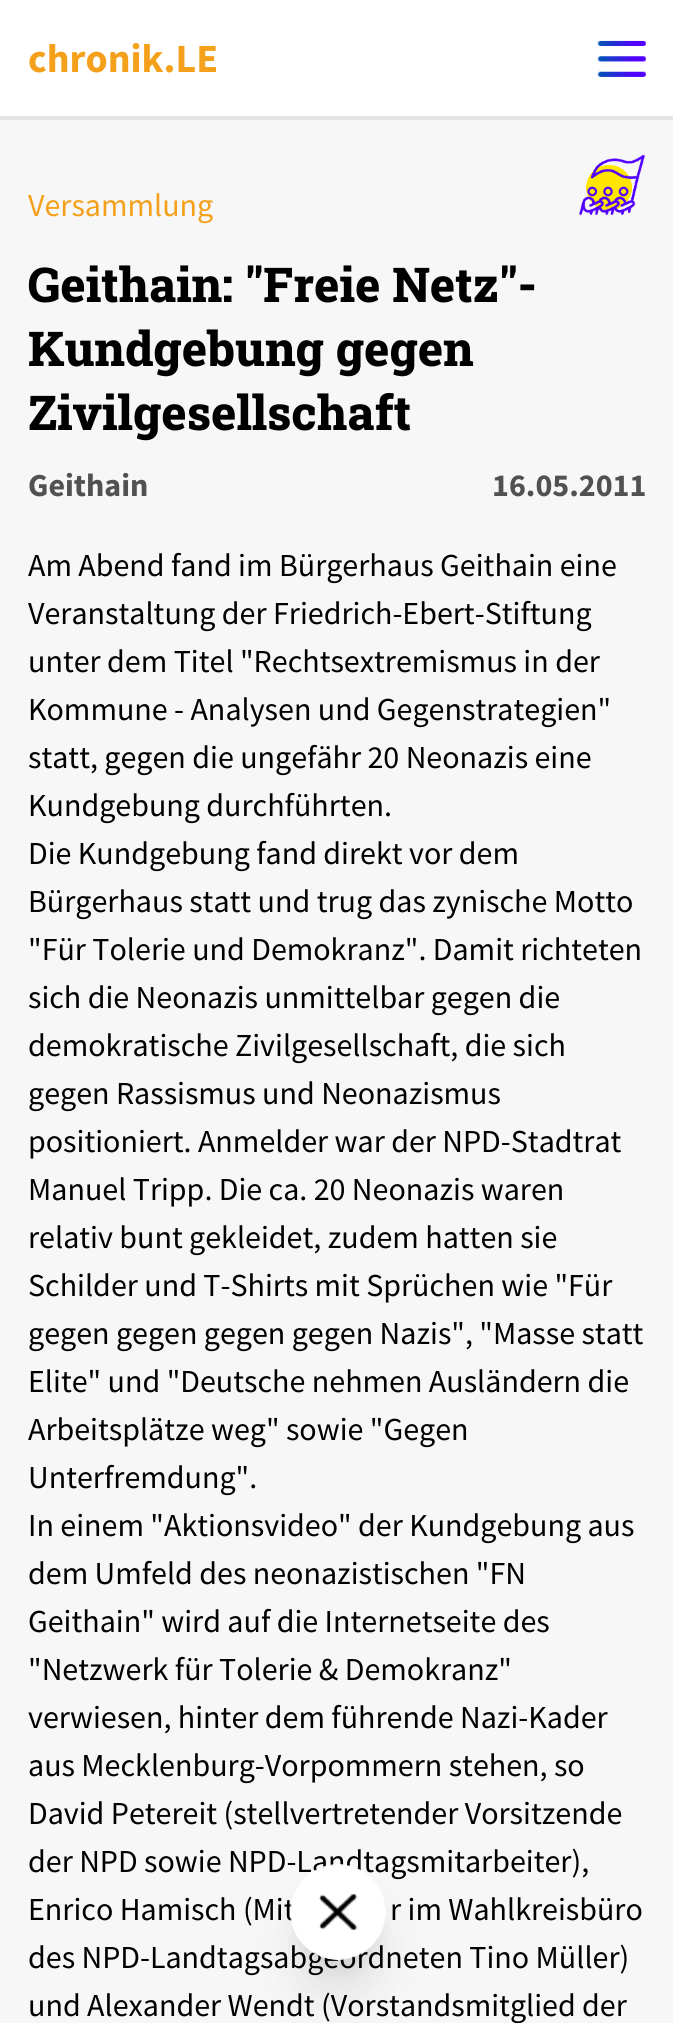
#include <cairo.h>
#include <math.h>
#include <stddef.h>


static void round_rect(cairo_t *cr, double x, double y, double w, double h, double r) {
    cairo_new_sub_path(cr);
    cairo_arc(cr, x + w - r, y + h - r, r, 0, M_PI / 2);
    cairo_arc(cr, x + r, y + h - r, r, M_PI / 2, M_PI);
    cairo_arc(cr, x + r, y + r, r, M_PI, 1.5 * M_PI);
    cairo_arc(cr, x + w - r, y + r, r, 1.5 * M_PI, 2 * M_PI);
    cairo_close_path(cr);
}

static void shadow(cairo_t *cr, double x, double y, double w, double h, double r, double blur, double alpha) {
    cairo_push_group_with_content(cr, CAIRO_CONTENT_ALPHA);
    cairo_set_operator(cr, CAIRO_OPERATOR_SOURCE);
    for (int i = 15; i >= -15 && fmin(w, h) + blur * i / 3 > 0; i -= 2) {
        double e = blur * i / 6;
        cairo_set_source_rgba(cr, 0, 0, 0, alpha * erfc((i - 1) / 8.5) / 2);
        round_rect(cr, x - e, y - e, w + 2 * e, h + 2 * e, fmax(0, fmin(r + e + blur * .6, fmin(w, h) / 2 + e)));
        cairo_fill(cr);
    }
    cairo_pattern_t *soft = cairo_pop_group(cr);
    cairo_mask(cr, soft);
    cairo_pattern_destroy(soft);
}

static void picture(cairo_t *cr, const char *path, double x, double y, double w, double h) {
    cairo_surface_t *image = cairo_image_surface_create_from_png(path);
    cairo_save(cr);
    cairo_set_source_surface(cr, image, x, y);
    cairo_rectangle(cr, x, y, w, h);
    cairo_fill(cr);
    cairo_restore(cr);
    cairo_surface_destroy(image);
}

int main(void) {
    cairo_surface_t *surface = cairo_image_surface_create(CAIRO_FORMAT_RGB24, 673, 2023);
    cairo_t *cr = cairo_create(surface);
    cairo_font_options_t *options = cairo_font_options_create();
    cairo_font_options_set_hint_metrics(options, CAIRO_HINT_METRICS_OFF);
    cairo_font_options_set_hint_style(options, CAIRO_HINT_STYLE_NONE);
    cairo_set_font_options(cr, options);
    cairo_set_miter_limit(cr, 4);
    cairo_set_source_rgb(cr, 0.965, 0.965, 0.965);
    cairo_paint(cr);
    cairo_set_source_rgb(cr, 1, 1, 1);
    cairo_rectangle(cr, 0, 0, 673, 116);
    cairo_fill(cr);
    cairo_set_source_rgb(cr, 0.898, 0.898, 0.898);
    cairo_rectangle(cr, 0, 116, 673, 4);
    cairo_fill(cr);
    cairo_select_font_face(cr, "Source Sans Pro", CAIRO_FONT_SLANT_NORMAL, CAIRO_FONT_WEIGHT_BOLD);
    cairo_set_font_size(cr, 40);
    cairo_set_source_rgb(cr, 0.957, 0.627, 0.102);
    cairo_move_to(cr, 28, 72);
    cairo_show_text(cr, "chronik.LE");
    picture(cr, "img1.png", 597, 40, 49, 37);
    cairo_select_font_face(cr, "Source Sans Pro", CAIRO_FONT_SLANT_NORMAL, CAIRO_FONT_WEIGHT_NORMAL);
    cairo_set_font_size(cr, 32);
    cairo_move_to(cr, 28, 216);
    cairo_show_text(cr, "Versammlung");
    picture(cr, "img2.png", 579, 154, 66, 62);
    cairo_select_font_face(cr, "Roboto Slab ExtraBold", CAIRO_FONT_SLANT_NORMAL, CAIRO_FONT_WEIGHT_NORMAL);
    cairo_set_font_size(cr, 48);
    cairo_set_source_rgb(cr, 0, 0, 0);
    cairo_move_to(cr, 28, 302);
    cairo_show_text(cr, "Geithain: \"Freie Netz\"-");
    cairo_move_to(cr, 28, 366);
    cairo_show_text(cr, "Kundgebung gegen");
    cairo_move_to(cr, 28, 430);
    cairo_show_text(cr, "Zivilgesellschaft");
    cairo_select_font_face(cr, "Source Sans Pro", CAIRO_FONT_SLANT_NORMAL, CAIRO_FONT_WEIGHT_BOLD);
    cairo_set_font_size(cr, 32);
    cairo_set_source_rgb(cr, 0.318, 0.318, 0.318);
    cairo_move_to(cr, 28, 496);
    cairo_show_text(cr, "Geithain");
    cairo_move_to(cr, 492, 496);
    cairo_show_text(cr, "16.05.2011");
    cairo_select_font_face(cr, "Source Sans Pro", CAIRO_FONT_SLANT_NORMAL, CAIRO_FONT_WEIGHT_NORMAL);
    cairo_set_source_rgb(cr, 0, 0, 0);
    cairo_move_to(cr, 28, 576);
    cairo_show_text(cr, "Am Abend fand im Bürgerhaus Geithain eine");
    cairo_move_to(cr, 28, 624);
    cairo_show_text(cr, "Veranstaltung der Friedrich-Ebert-Stiftung");
    cairo_move_to(cr, 28, 672);
    cairo_show_text(cr, "unter dem Titel \"Rechtsextremismus in der");
    cairo_move_to(cr, 28, 720);
    cairo_show_text(cr, "Kommune - Analysen und Gegenstrategien\"");
    cairo_move_to(cr, 28, 768);
    cairo_show_text(cr, "statt, gegen die ungefähr 20 Neonazis eine");
    cairo_move_to(cr, 28, 816);
    cairo_show_text(cr, "Kundgebung durchführten.");
    cairo_move_to(cr, 28, 864);
    cairo_show_text(cr, "Die Kundgebung fand direkt vor dem");
    cairo_move_to(cr, 28, 912);
    cairo_show_text(cr, "Bürgerhaus statt und trug das zynische Motto");
    cairo_move_to(cr, 28, 960);
    cairo_show_text(cr, "\"Für Tolerie und Demokranz\". Damit richteten");
    cairo_move_to(cr, 28, 1008);
    cairo_show_text(cr, "sich die Neonazis unmittelbar gegen die");
    cairo_move_to(cr, 28, 1056);
    cairo_show_text(cr, "demokratische Zivilgesellschaft, die sich");
    cairo_move_to(cr, 28, 1104);
    cairo_show_text(cr, "gegen Rassismus und Neonazismus");
    cairo_move_to(cr, 28, 1152);
    cairo_show_text(cr, "positioniert. Anmelder war der NPD-Stadtrat");
    cairo_move_to(cr, 28, 1200);
    cairo_show_text(cr, "Manuel Tripp. Die ca. 20 Neonazis waren");
    cairo_move_to(cr, 28, 1248);
    cairo_show_text(cr, "relativ bunt gekleidet, zudem hatten sie");
    cairo_move_to(cr, 28, 1296);
    cairo_show_text(cr, "Schilder und T-Shirts mit Sprüchen wie \"Für");
    cairo_move_to(cr, 28, 1344);
    cairo_show_text(cr, "gegen gegen gegen gegen Nazis\", \"Masse statt");
    cairo_move_to(cr, 28, 1392);
    cairo_show_text(cr, "Elite\" und \"Deutsche nehmen Ausländern die");
    cairo_move_to(cr, 28, 1440);
    cairo_show_text(cr, "Arbeitsplätze weg\" sowie \"Gegen");
    cairo_move_to(cr, 28, 1488);
    cairo_show_text(cr, "Unterfremdung\".");
    cairo_move_to(cr, 28, 1536);
    cairo_show_text(cr, "In einem \"Aktionsvideo\" der Kundgebung aus");
    cairo_move_to(cr, 28, 1584);
    cairo_show_text(cr, "dem Umfeld des neonazistischen \"FN");
    cairo_move_to(cr, 28, 1632);
    cairo_show_text(cr, "Geithain\" wird auf die Internetseite des");
    cairo_move_to(cr, 28, 1680);
    cairo_show_text(cr, "\"Netzwerk für Tolerie & Demokranz\"");
    cairo_move_to(cr, 28, 1728);
    cairo_show_text(cr, "verwiesen, hinter dem führende Nazi-Kader");
    cairo_move_to(cr, 28, 1776);
    cairo_show_text(cr, "aus Mecklenburg-Vorpommern stehen, so");
    cairo_move_to(cr, 28, 1824);
    cairo_show_text(cr, "David Petereit (stellvertretender Vorsitzende");
    cairo_move_to(cr, 28, 1872);
    cairo_show_text(cr, "der NPD sowie NPD-Landtagsmitarbeiter),");
    cairo_move_to(cr, 28, 1920);
    cairo_show_text(cr, "Enrico Hamisch (Mit");
    cairo_move_to(cr, 390, 1920);
    cairo_show_text(cr, "r im Wahlkreisbüro");
    cairo_move_to(cr, 28, 1968);
    cairo_show_text(cr, "des NPD-Landtagsabgeordneten Tino Müller)");
    cairo_move_to(cr, 28, 2016);
    cairo_show_text(cr, "und Alexander Wendt (Vorstandsmitglied der");
    cairo_set_source_rgb(cr, 0, 0, 0);
    shadow(cr, 302, 1892, 72, 72, 36, 10, 0.1);
    shadow(cr, 300, 1914, 76, 76, 38, 25, 0.1);
    picture(cr, "img3.png", 290, 1864, 96, 96);
    cairo_surface_write_to_png(surface, "page.png");
    cairo_font_options_destroy(options);
    cairo_destroy(cr);
    cairo_surface_destroy(surface);
    return 0;
}
